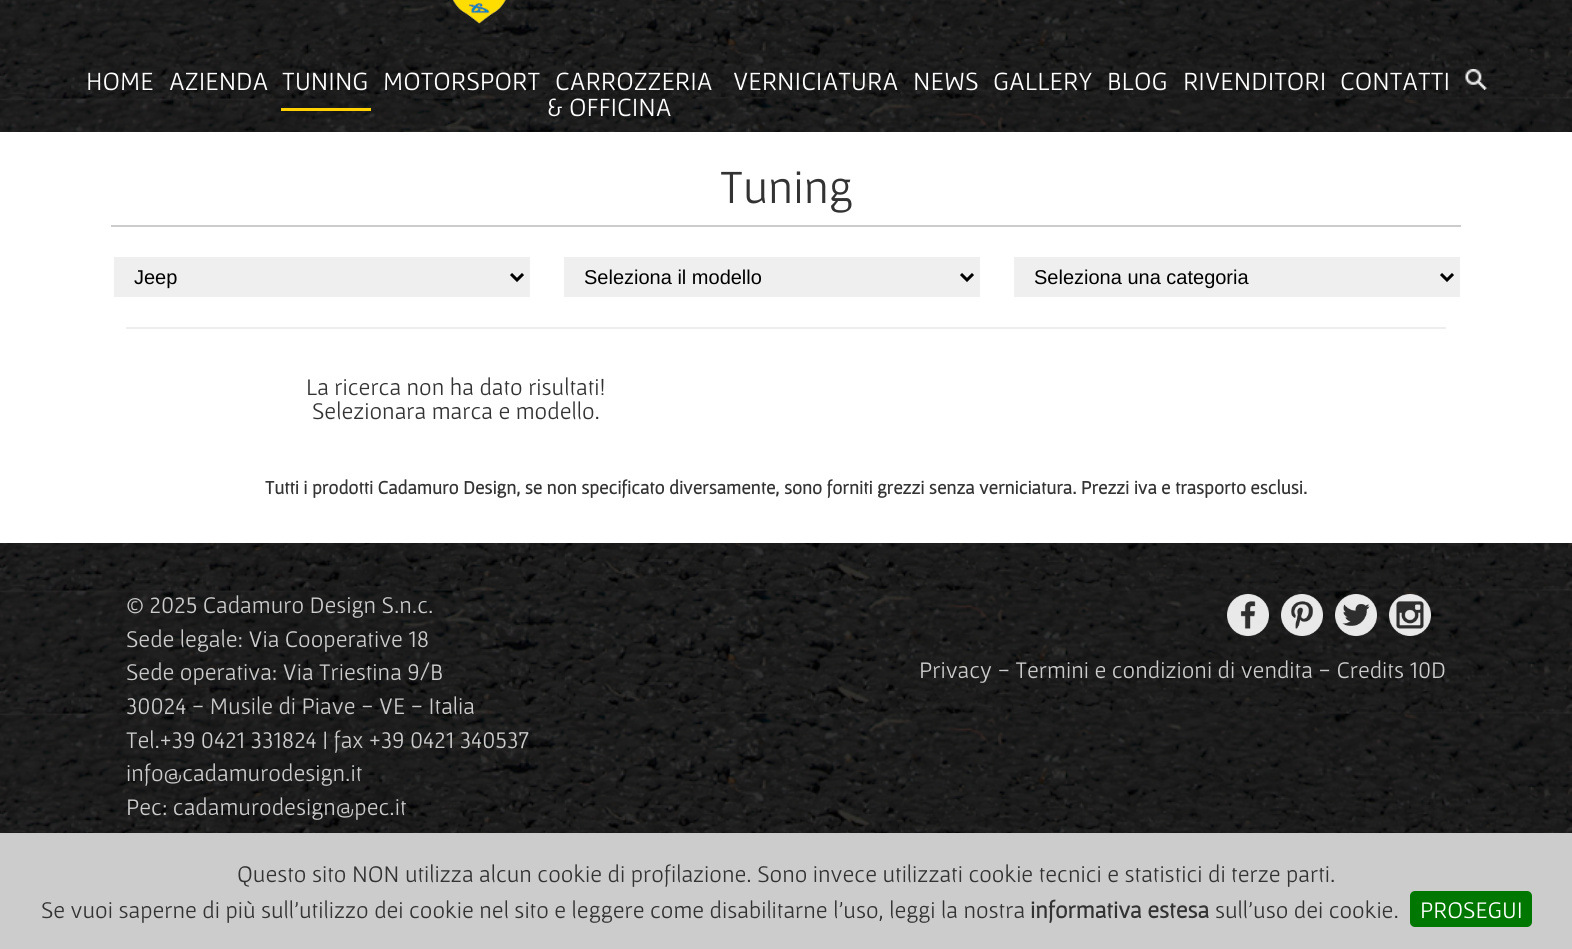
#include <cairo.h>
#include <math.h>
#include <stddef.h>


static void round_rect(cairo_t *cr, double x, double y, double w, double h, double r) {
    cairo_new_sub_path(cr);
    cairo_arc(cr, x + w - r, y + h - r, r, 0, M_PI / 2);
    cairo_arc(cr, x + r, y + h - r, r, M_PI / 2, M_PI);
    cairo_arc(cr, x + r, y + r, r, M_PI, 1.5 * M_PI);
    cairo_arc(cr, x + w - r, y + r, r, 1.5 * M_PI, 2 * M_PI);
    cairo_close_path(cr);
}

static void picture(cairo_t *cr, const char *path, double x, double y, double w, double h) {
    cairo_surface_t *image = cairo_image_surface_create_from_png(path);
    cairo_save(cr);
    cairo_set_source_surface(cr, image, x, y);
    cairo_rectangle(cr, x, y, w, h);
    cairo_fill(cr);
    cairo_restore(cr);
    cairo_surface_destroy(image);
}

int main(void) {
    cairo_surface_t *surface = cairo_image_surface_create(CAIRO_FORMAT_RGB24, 1572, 949);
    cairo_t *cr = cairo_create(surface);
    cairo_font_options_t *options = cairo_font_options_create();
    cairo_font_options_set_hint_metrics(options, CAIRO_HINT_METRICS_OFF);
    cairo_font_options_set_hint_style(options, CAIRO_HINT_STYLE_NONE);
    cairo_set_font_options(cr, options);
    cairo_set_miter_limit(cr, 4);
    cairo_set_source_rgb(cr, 1, 1, 1);
    cairo_paint(cr);
    picture(cr, "img1.png", 0, 0, 1572, 833);
    picture(cr, "img2.png", 449, 0, 60, 26);
    cairo_select_font_face(cr, "Gafata", CAIRO_FONT_SLANT_NORMAL, CAIRO_FONT_WEIGHT_NORMAL);
    cairo_set_font_size(cr, 26.5);
    cairo_set_source_rgb(cr, 1, 1, 1);
    cairo_move_to(cr, 86, 90);
    cairo_show_text(cr, "HOME");
    cairo_move_to(cr, 169, 90);
    cairo_show_text(cr, "AZIENDA");
    cairo_move_to(cr, 282, 90);
    cairo_show_text(cr, "TUNING");
    cairo_set_source_rgb(cr, 1, 0.82, 0);
    cairo_rectangle(cr, 281, 108, 90, 3);
    cairo_fill(cr);
    cairo_set_source_rgb(cr, 1, 1, 1);
    cairo_move_to(cr, 383, 90);
    cairo_show_text(cr, "MOTORSPORT");
    cairo_move_to(cr, 555, 90);
    cairo_show_text(cr, "CARROZZERIA");
    cairo_move_to(cr, 547, 116);
    cairo_show_text(cr, "& OFFICINA");
    cairo_move_to(cr, 733, 90);
    cairo_show_text(cr, "VERNICIATURA");
    cairo_move_to(cr, 913, 90);
    cairo_show_text(cr, "NEWS");
    cairo_move_to(cr, 993, 90);
    cairo_show_text(cr, "GALLERY");
    cairo_move_to(cr, 1107, 90);
    cairo_show_text(cr, "BLOG");
    cairo_move_to(cr, 1183, 90);
    cairo_show_text(cr, "RIVENDITORI");
    cairo_move_to(cr, 1340, 90);
    cairo_show_text(cr, "CONTATTI");
    picture(cr, "img3.png", 1465, 69, 22, 21);
    cairo_rectangle(cr, 0, 132, 1572, 411);
    cairo_fill(cr);
    cairo_set_source_rgb(cr, 0.8, 0.8, 0.8);
    cairo_rectangle(cr, 111, 225, 1350, 2);
    cairo_fill(cr);
    cairo_set_font_size(cr, 48);
    cairo_set_source_rgb(cr, 0.2, 0.2, 0.2);
    cairo_move_to(cr, 720, 203);
    cairo_show_text(cr, "Tuning");
    cairo_set_source_rgb(cr, 0.937, 0.937, 0.937);
    cairo_rectangle(cr, 114, 257, 416, 40);
    cairo_fill(cr);
    cairo_new_path(cr);
    cairo_move_to(cr, 511, 274);
    cairo_line_to(cr, 517, 280);
    cairo_line_to(cr, 523, 274);
    cairo_set_source_rgb(cr, 0, 0, 0);
    cairo_set_line_width(cr, 3);
    cairo_stroke(cr);
    cairo_select_font_face(cr, "Liberation Sans", CAIRO_FONT_SLANT_NORMAL, CAIRO_FONT_WEIGHT_NORMAL);
    cairo_set_font_size(cr, 20);
    cairo_move_to(cr, 134, 284);
    cairo_show_text(cr, "Jeep");
    cairo_set_source_rgb(cr, 0.937, 0.937, 0.937);
    cairo_rectangle(cr, 564, 257, 416, 40);
    cairo_fill(cr);
    cairo_new_path(cr);
    cairo_move_to(cr, 961, 274);
    cairo_line_to(cr, 967, 280);
    cairo_line_to(cr, 973, 274);
    cairo_set_source_rgb(cr, 0, 0, 0);
    cairo_stroke(cr);
    cairo_move_to(cr, 584, 284);
    cairo_show_text(cr, "Seleziona il modello");
    cairo_set_source_rgb(cr, 0.937, 0.937, 0.937);
    cairo_rectangle(cr, 1014, 257, 446, 40);
    cairo_fill(cr);
    cairo_new_path(cr);
    cairo_move_to(cr, 1441, 274);
    cairo_line_to(cr, 1447, 280);
    cairo_line_to(cr, 1453, 274);
    cairo_set_source_rgb(cr, 0, 0, 0);
    cairo_stroke(cr);
    cairo_move_to(cr, 1034, 284);
    cairo_show_text(cr, "Seleziona una categoria");
    cairo_set_source_rgb(cr, 0.933, 0.933, 0.933);
    cairo_rectangle(cr, 126, 327, 1320, 2);
    cairo_fill(cr);
    cairo_select_font_face(cr, "Gafata", CAIRO_FONT_SLANT_NORMAL, CAIRO_FONT_WEIGHT_NORMAL);
    cairo_set_font_size(cr, 24);
    cairo_set_source_rgb(cr, 0.2, 0.2, 0.2);
    cairo_move_to(cr, 306, 395);
    cairo_show_text(cr, "La ricerca non ha dato risultati!");
    cairo_move_to(cr, 312, 419);
    cairo_show_text(cr, "Selezionara marca e modello.");
    cairo_select_font_face(cr, "Gafata", CAIRO_FONT_SLANT_NORMAL, CAIRO_FONT_WEIGHT_BOLD);
    cairo_set_font_size(cr, 19.2);
    cairo_move_to(cr, 265, 494);
    cairo_show_text(cr, "Tutti i prodotti Cadamuro Design, se non specificato diversamente, sono forniti grezzi senza verniciatura. Prezzi iva e trasporto esclusi.");
    cairo_select_font_face(cr, "Gafata", CAIRO_FONT_SLANT_NORMAL, CAIRO_FONT_WEIGHT_NORMAL);
    cairo_set_font_size(cr, 24);
    cairo_set_source_rgb(cr, 0.8, 0.8, 0.8);
    cairo_move_to(cr, 126, 613);
    cairo_show_text(cr, "© 2025 Cadamuro Design S.n.c.");
    cairo_move_to(cr, 126, 647);
    cairo_show_text(cr, "Sede legale: Via Cooperative 18");
    cairo_move_to(cr, 126, 680);
    cairo_show_text(cr, "Sede operativa: Via Triestina 9/B");
    cairo_move_to(cr, 126, 714);
    cairo_show_text(cr, "30024 - Musile di Piave - VE - Italia");
    cairo_move_to(cr, 126, 748);
    cairo_show_text(cr, "Tel.+39 0421 331824 | fax +39 0421 340537");
    cairo_move_to(cr, 126, 781);
    cairo_show_text(cr, "info@cadamurodesign.it");
    cairo_move_to(cr, 126, 815);
    cairo_show_text(cr, "Pec: cadamurodesign@pec.it");
    picture(cr, "img4.png", 1227, 594, 42, 42);
    picture(cr, "img5.png", 1281, 594, 42, 42);
    picture(cr, "img6.png", 1335, 594, 42, 42);
    picture(cr, "img7.png", 1389, 594, 42, 42);
    cairo_move_to(cr, 919, 678);
    cairo_show_text(cr, "Privacy - Termini e condizioni di vendita - Credits 10D");
    cairo_rectangle(cr, 0, 833, 1572, 116);
    cairo_fill(cr);
    cairo_set_source_rgb(cr, 0.2, 0.2, 0.2);
    cairo_move_to(cr, 237, 882);
    cairo_show_text(cr, "Questo sito NON utilizza alcun cookie di profilazione. Sono invece utilizzati cookie tecnici e statistici di terze parti.");
    cairo_move_to(cr, 41, 918);
    cairo_show_text(cr, "Se vuoi saperne di più sull’utilizzo dei cookie nel sito e leggere come disabilitarne l’uso, leggi la nostra");
    cairo_select_font_face(cr, "Gafata", CAIRO_FONT_SLANT_NORMAL, CAIRO_FONT_WEIGHT_BOLD);
    cairo_move_to(cr, 1030, 918);
    cairo_show_text(cr, "informativa estesa");
    cairo_select_font_face(cr, "Gafata", CAIRO_FONT_SLANT_NORMAL, CAIRO_FONT_WEIGHT_NORMAL);
    cairo_move_to(cr, 1215, 918);
    cairo_show_text(cr, "sull’uso dei cookie.");
    cairo_set_source_rgb(cr, 0, 0.467, 0);
    round_rect(cr, 1410, 891, 122, 36, 5);
    cairo_fill(cr);
    cairo_set_source_rgb(cr, 1, 1, 1);
    cairo_move_to(cr, 1420, 918);
    cairo_show_text(cr, "PROSEGUI");
    cairo_surface_write_to_png(surface, "page.png");
    cairo_font_options_destroy(options);
    cairo_destroy(cr);
    cairo_surface_destroy(surface);
    return 0;
}
